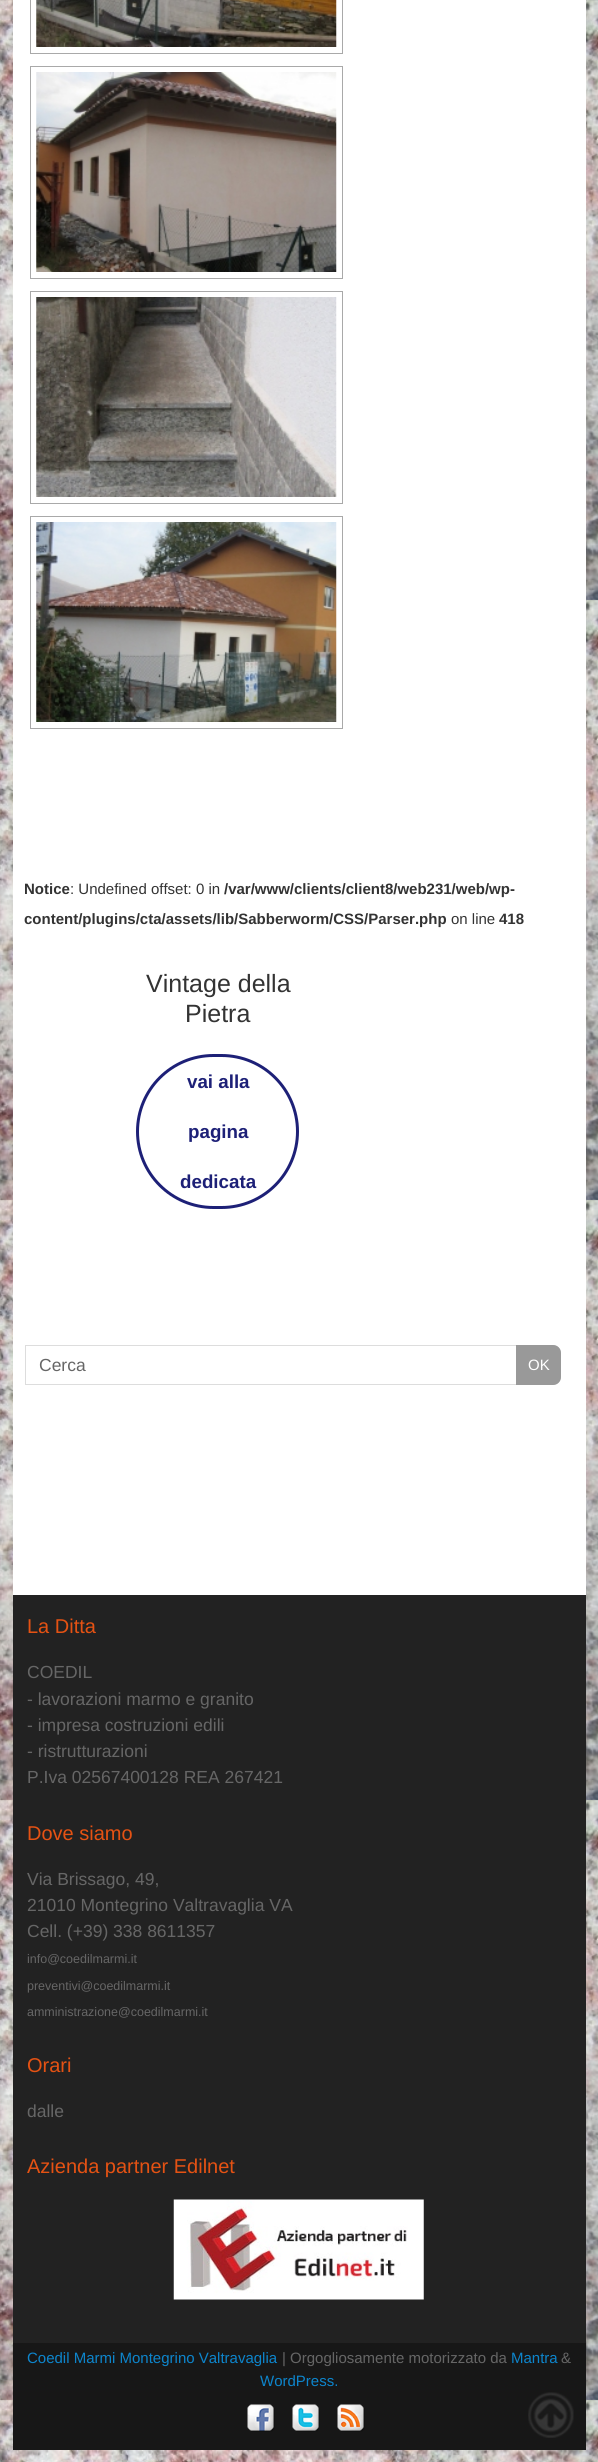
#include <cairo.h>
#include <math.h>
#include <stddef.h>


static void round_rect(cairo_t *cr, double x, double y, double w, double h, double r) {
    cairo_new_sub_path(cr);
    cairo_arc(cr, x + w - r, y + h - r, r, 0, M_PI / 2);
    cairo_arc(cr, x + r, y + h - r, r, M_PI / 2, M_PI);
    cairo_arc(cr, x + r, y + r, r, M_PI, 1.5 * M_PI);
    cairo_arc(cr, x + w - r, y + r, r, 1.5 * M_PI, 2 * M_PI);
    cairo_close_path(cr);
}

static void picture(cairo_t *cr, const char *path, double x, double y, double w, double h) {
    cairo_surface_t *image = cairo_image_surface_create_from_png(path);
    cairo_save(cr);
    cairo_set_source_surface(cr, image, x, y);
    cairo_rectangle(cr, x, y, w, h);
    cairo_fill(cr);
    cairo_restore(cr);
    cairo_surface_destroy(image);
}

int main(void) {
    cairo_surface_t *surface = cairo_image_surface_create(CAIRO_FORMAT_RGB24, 598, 2462);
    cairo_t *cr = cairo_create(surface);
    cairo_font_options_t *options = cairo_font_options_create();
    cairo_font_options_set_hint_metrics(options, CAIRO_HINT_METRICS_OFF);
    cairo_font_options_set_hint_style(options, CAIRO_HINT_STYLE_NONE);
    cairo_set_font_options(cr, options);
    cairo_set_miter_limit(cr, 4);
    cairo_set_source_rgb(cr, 1, 1, 1);
    cairo_paint(cr);
    picture(cr, "img1.png", 0, 0, 598, 2462);
    cairo_set_source_rgb(cr, 1, 1, 1);
    cairo_rectangle(cr, 13, 0, 573, 1595);
    cairo_fill(cr);
    cairo_rectangle(cr, 30.5, -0.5, 312, 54);
    cairo_set_source_rgb(cr, 0.663, 0.663, 0.663);
    cairo_set_line_width(cr, 1);
    cairo_stroke(cr);
    picture(cr, "img2.png", 36, 0, 301, 47);
    cairo_rectangle(cr, 30.5, 66.5, 312, 212);
    cairo_stroke(cr);
    picture(cr, "img3.png", 36, 72, 301, 200);
    cairo_rectangle(cr, 30.5, 291.5, 312, 212);
    cairo_stroke(cr);
    picture(cr, "img4.png", 36, 297, 301, 200);
    cairo_rectangle(cr, 30.5, 516.5, 312, 212);
    cairo_stroke(cr);
    picture(cr, "img5.png", 36, 522, 301, 200);
    cairo_select_font_face(cr, "Liberation Sans", CAIRO_FONT_SLANT_NORMAL, CAIRO_FONT_WEIGHT_BOLD);
    cairo_set_font_size(cr, 15);
    cairo_set_source_rgb(cr, 0.2, 0.2, 0.2);
    cairo_move_to(cr, 24, 894);
    cairo_show_text(cr, "Notice");
    cairo_select_font_face(cr, "Liberation Sans", CAIRO_FONT_SLANT_NORMAL, CAIRO_FONT_WEIGHT_NORMAL);
    cairo_move_to(cr, 70, 894);
    cairo_show_text(cr, ": Undefined offset: 0 in");
    cairo_select_font_face(cr, "Liberation Sans", CAIRO_FONT_SLANT_NORMAL, CAIRO_FONT_WEIGHT_BOLD);
    cairo_move_to(cr, 224, 894);
    cairo_show_text(cr, "/var/www/clients/client8/web231/web/wp-");
    cairo_move_to(cr, 24, 924);
    cairo_show_text(cr, "content/plugins/cta/assets/lib/Sabberworm/CSS/Parser.php");
    cairo_select_font_face(cr, "Liberation Sans", CAIRO_FONT_SLANT_NORMAL, CAIRO_FONT_WEIGHT_NORMAL);
    cairo_move_to(cr, 451, 924);
    cairo_show_text(cr, "on line");
    cairo_select_font_face(cr, "Liberation Sans", CAIRO_FONT_SLANT_NORMAL, CAIRO_FONT_WEIGHT_BOLD);
    cairo_move_to(cr, 499, 924);
    cairo_show_text(cr, "418");
    cairo_select_font_face(cr, "Liberation Sans", CAIRO_FONT_SLANT_NORMAL, CAIRO_FONT_WEIGHT_NORMAL);
    cairo_set_font_size(cr, 25);
    cairo_move_to(cr, 146, 992);
    cairo_show_text(cr, "Vintage della");
    cairo_move_to(cr, 185, 1022);
    cairo_show_text(cr, "Pietra");
    round_rect(cr, 137.5, 1055.5, 160, 152, 76);
    cairo_set_source_rgb(cr, 0.114, 0.125, 0.467);
    cairo_set_line_width(cr, 3);
    cairo_stroke(cr);
    cairo_select_font_face(cr, "Liberation Sans", CAIRO_FONT_SLANT_NORMAL, CAIRO_FONT_WEIGHT_BOLD);
    cairo_set_font_size(cr, 18.75);
    cairo_move_to(cr, 187, 1088);
    cairo_show_text(cr, "vai alla");
    cairo_move_to(cr, 188, 1138);
    cairo_show_text(cr, "pagina");
    cairo_move_to(cr, 180, 1188);
    cairo_show_text(cr, "dedicata");
    cairo_new_path(cr);
    cairo_move_to(cr, 25.5, 1345.5);
    cairo_line_to(cr, 553, 1345.5);
    cairo_curve_to(cr, 557, 1345.5, 560.5, 1349, 560.5, 1353);
    cairo_line_to(cr, 560.5, 1377);
    cairo_curve_to(cr, 560.5, 1381, 557, 1384.5, 553, 1384.5);
    cairo_line_to(cr, 25.5, 1384.5);
    cairo_close_path(cr);
    cairo_set_source_rgb(cr, 0.867, 0.867, 0.867);
    cairo_set_line_width(cr, 1);
    cairo_stroke(cr);
    cairo_select_font_face(cr, "Liberation Sans", CAIRO_FONT_SLANT_NORMAL, CAIRO_FONT_WEIGHT_NORMAL);
    cairo_set_font_size(cr, 17.5);
    cairo_set_source_rgb(cr, 0.4, 0.4, 0.4);
    cairo_move_to(cr, 39, 1371);
    cairo_show_text(cr, "Cerca");
    cairo_set_source_rgb(cr, 0.6, 0.6, 0.6);
    cairo_new_path(cr);
    cairo_move_to(cr, 516, 1345);
    cairo_line_to(cr, 553, 1345);
    cairo_curve_to(cr, 557.5, 1345, 561, 1348.5, 561, 1353);
    cairo_line_to(cr, 561, 1377);
    cairo_curve_to(cr, 561, 1381.5, 557.5, 1385, 553, 1385);
    cairo_line_to(cr, 516, 1385);
    cairo_close_path(cr);
    cairo_fill(cr);
    cairo_set_font_size(cr, 15);
    cairo_set_source_rgb(cr, 1, 1, 1);
    cairo_move_to(cr, 528, 1370);
    cairo_show_text(cr, "OK");
    cairo_set_source_rgb(cr, 0.133, 0.133, 0.133);
    cairo_rectangle(cr, 13, 1595, 573, 748);
    cairo_fill(cr);
    cairo_set_font_size(cr, 20);
    cairo_set_source_rgb(cr, 0.898, 0.322, 0.078);
    cairo_move_to(cr, 27, 1633);
    cairo_show_text(cr, "La Ditta");
    cairo_set_font_size(cr, 17.5);
    cairo_set_source_rgb(cr, 0.4, 0.4, 0.4);
    cairo_move_to(cr, 27, 1678);
    cairo_show_text(cr, "COEDIL");
    cairo_move_to(cr, 27, 1705);
    cairo_show_text(cr, "- lavorazioni marmo e granito");
    cairo_move_to(cr, 27, 1731);
    cairo_show_text(cr, "- impresa costruzioni edili");
    cairo_move_to(cr, 27, 1757);
    cairo_show_text(cr, "- ristrutturazioni");
    cairo_move_to(cr, 27, 1783);
    cairo_show_text(cr, "P.Iva 02567400128 REA 267421");
    cairo_set_font_size(cr, 20);
    cairo_set_source_rgb(cr, 0.898, 0.322, 0.078);
    cairo_move_to(cr, 27, 1840);
    cairo_show_text(cr, "Dove siamo");
    cairo_set_font_size(cr, 17.5);
    cairo_set_source_rgb(cr, 0.4, 0.4, 0.4);
    cairo_move_to(cr, 27, 1885);
    cairo_show_text(cr, "Via Brissago, 49,");
    cairo_move_to(cr, 27, 1911);
    cairo_show_text(cr, "21010 Montegrino Valtravaglia VA");
    cairo_move_to(cr, 27, 1937);
    cairo_show_text(cr, "Cell. (+39) 338 8611357");
    cairo_set_font_size(cr, 12.5);
    cairo_move_to(cr, 27, 1963);
    cairo_show_text(cr, "info@coedilmarmi.it");
    cairo_move_to(cr, 27, 1990);
    cairo_show_text(cr, "preventivi@coedilmarmi.it");
    cairo_move_to(cr, 27, 2016);
    cairo_show_text(cr, "amministrazione@coedilmarmi.it");
    cairo_set_font_size(cr, 20);
    cairo_set_source_rgb(cr, 0.898, 0.322, 0.078);
    cairo_move_to(cr, 27, 2072);
    cairo_show_text(cr, "Orari");
    cairo_set_font_size(cr, 17.5);
    cairo_set_source_rgb(cr, 0.4, 0.4, 0.4);
    cairo_move_to(cr, 27, 2117);
    cairo_show_text(cr, "dalle");
    cairo_set_font_size(cr, 20);
    cairo_set_source_rgb(cr, 0.898, 0.322, 0.078);
    cairo_move_to(cr, 27, 2173);
    cairo_show_text(cr, "Azienda partner Edilnet");
    picture(cr, "img6.png", 173, 2199, 251, 101);
    cairo_set_source_rgb(cr, 0.09, 0.09, 0.09);
    cairo_rectangle(cr, 13, 2343, 573, 107);
    cairo_fill(cr);
    cairo_set_font_size(cr, 15);
    cairo_set_source_rgb(cr, 0.051, 0.522, 0.8);
    cairo_move_to(cr, 27, 2363);
    cairo_show_text(cr, "Coedil Marmi Montegrino Valtravaglia");
    cairo_set_source_rgb(cr, 0.4, 0.4, 0.4);
    cairo_move_to(cr, 282, 2363);
    cairo_show_text(cr, "| Orgogliosamente motorizzato da");
    cairo_set_source_rgb(cr, 0.051, 0.522, 0.8);
    cairo_move_to(cr, 511, 2363);
    cairo_show_text(cr, "Mantra");
    cairo_set_source_rgb(cr, 0.4, 0.4, 0.4);
    cairo_move_to(cr, 561, 2363);
    cairo_show_text(cr, "&");
    cairo_set_source_rgb(cr, 0.051, 0.522, 0.8);
    cairo_move_to(cr, 260, 2386);
    cairo_show_text(cr, "WordPress.");
    picture(cr, "img7.png", 247, 2404, 28, 28);
    picture(cr, "img8.png", 292, 2404, 28, 28);
    picture(cr, "img9.png", 337, 2404, 28, 28);
    picture(cr, "img10.png", 528, 2392, 46, 46);
    cairo_surface_write_to_png(surface, "page.png");
    cairo_font_options_destroy(options);
    cairo_destroy(cr);
    cairo_surface_destroy(surface);
    return 0;
}
